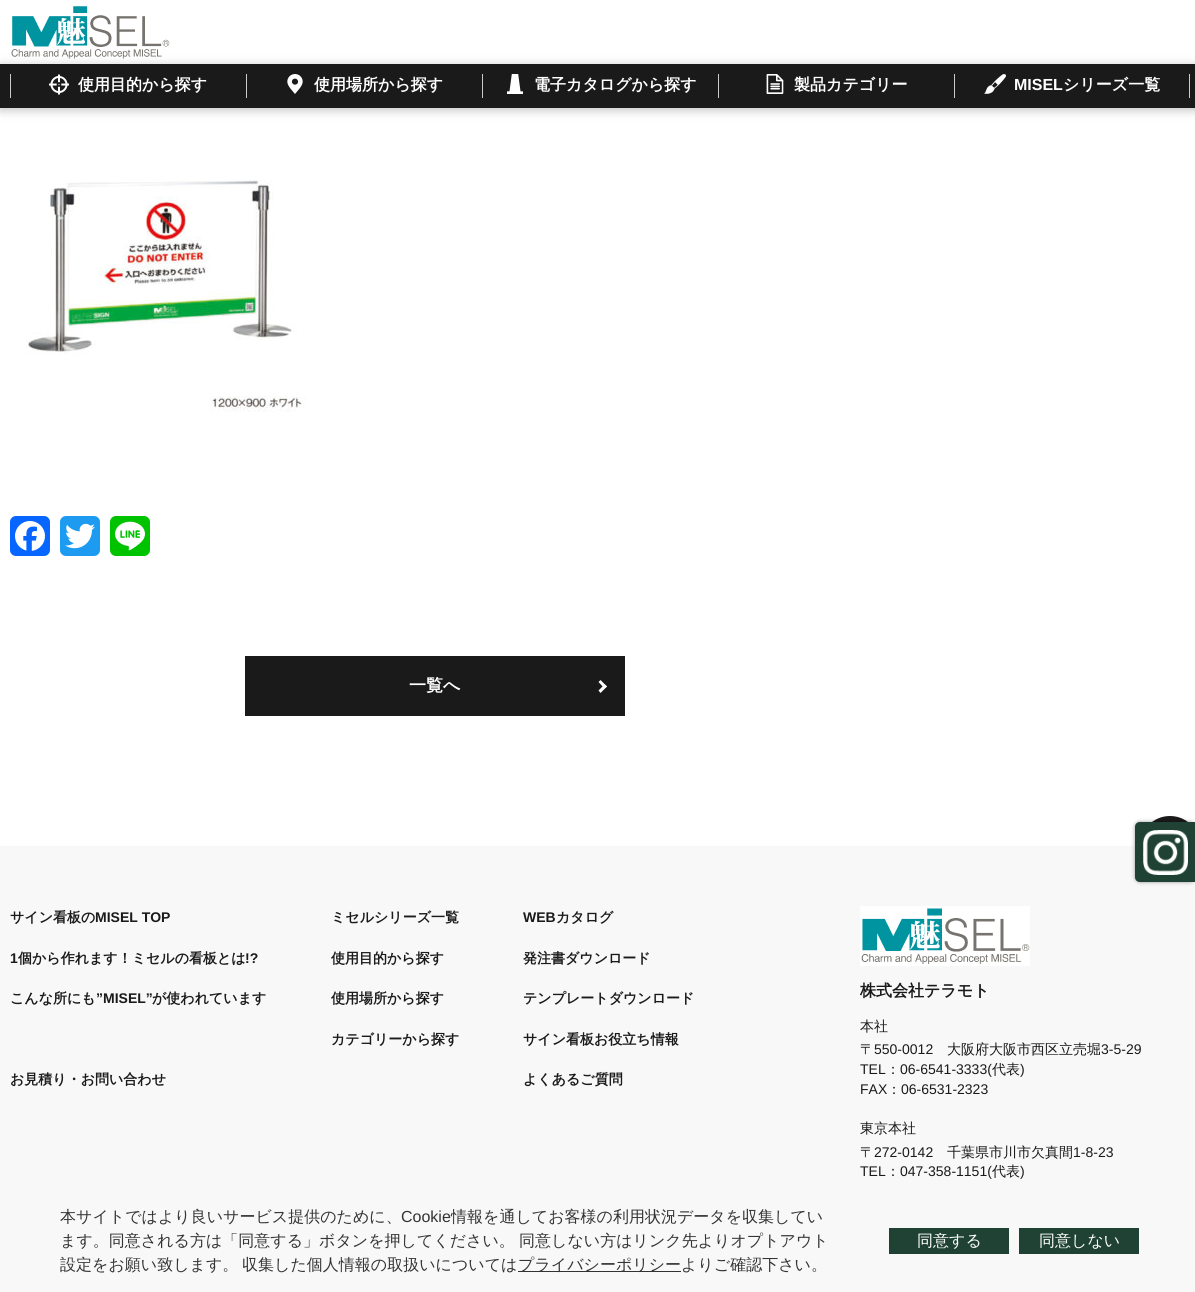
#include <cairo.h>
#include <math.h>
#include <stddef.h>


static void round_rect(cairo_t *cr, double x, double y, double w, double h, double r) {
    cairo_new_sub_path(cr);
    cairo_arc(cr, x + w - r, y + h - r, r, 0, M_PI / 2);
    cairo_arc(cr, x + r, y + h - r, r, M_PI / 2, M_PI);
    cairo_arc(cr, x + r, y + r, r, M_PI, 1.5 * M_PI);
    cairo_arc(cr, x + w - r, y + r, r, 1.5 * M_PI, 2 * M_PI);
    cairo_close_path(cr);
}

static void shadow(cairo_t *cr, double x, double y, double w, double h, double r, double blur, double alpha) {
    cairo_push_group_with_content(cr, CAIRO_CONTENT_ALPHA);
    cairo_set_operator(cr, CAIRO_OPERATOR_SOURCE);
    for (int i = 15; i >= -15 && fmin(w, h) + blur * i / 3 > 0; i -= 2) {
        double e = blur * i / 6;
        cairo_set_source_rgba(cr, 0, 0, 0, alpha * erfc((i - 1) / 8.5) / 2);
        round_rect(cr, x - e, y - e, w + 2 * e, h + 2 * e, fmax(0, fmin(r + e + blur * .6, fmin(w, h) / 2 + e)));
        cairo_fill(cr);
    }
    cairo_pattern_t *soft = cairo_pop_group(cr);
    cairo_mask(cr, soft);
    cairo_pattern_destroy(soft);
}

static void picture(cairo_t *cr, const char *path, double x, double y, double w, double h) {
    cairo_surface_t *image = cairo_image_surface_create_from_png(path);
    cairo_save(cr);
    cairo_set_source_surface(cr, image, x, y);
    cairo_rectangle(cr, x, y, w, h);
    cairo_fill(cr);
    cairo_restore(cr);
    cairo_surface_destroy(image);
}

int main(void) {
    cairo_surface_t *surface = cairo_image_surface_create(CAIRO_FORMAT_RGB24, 1195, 1292);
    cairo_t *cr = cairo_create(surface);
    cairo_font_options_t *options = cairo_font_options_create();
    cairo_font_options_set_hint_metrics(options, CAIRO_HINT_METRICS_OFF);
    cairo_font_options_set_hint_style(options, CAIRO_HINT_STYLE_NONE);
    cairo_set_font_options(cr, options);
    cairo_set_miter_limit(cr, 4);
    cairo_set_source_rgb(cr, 1, 1, 1);
    cairo_paint(cr);
    picture(cr, "img1.png", 11, 6, 159, 53);
    cairo_set_source_rgb(cr, 0.376, 0.376, 0.376);
    shadow(cr, 0, 66, 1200, 44, 0, 5, 0.4);
    cairo_set_source_rgb(cr, 0.102, 0.102, 0.102);
    cairo_rectangle(cr, 0, 64, 1195, 44);
    cairo_fill(cr);
    cairo_set_source_rgb(cr, 0.8, 0.8, 0.8);
    cairo_rectangle(cr, 10, 74, 1, 24);
    cairo_fill(cr);
    picture(cr, "img2.png", 49, 74, 20, 21);
    cairo_select_font_face(cr, "WenQuanYi Zen Hei", CAIRO_FONT_SLANT_NORMAL, CAIRO_FONT_WEIGHT_BOLD);
    cairo_set_font_size(cr, 16);
    cairo_set_source_rgb(cr, 1, 1, 1);
    cairo_move_to(cr, 78, 90);
    cairo_show_text(cr, "使用目的から探す");
    cairo_set_source_rgb(cr, 0.8, 0.8, 0.8);
    cairo_rectangle(cr, 246, 74, 1, 24);
    cairo_fill(cr);
    picture(cr, "img3.png", 287, 74, 16, 20);
    cairo_set_source_rgb(cr, 1, 1, 1);
    cairo_move_to(cr, 314, 90);
    cairo_show_text(cr, "使用場所から探す");
    cairo_set_source_rgb(cr, 0.8, 0.8, 0.8);
    cairo_rectangle(cr, 482, 74, 1, 24);
    cairo_fill(cr);
    picture(cr, "img4.png", 507, 74, 16, 20);
    cairo_set_source_rgb(cr, 1, 1, 1);
    cairo_move_to(cr, 534, 90);
    cairo_show_text(cr, "電子カタログから探す");
    cairo_set_source_rgb(cr, 0.8, 0.8, 0.8);
    cairo_rectangle(cr, 718, 74, 1, 24);
    cairo_fill(cr);
    picture(cr, "img5.png", 766, 74, 18, 20);
    cairo_set_source_rgb(cr, 1, 1, 1);
    cairo_move_to(cr, 794, 90);
    cairo_show_text(cr, "製品カテゴリー");
    cairo_set_source_rgb(cr, 0.8, 0.8, 0.8);
    cairo_rectangle(cr, 954, 74, 1, 24);
    cairo_fill(cr);
    picture(cr, "img6.png", 984, 74, 22, 20);
    cairo_select_font_face(cr, "Liberation Sans", CAIRO_FONT_SLANT_NORMAL, CAIRO_FONT_WEIGHT_BOLD);
    cairo_set_source_rgb(cr, 1, 1, 1);
    cairo_move_to(cr, 1014, 90);
    cairo_show_text(cr, "MISEL");
    cairo_select_font_face(cr, "WenQuanYi Zen Hei", CAIRO_FONT_SLANT_NORMAL, CAIRO_FONT_WEIGHT_BOLD);
    cairo_move_to(cr, 1063, 90);
    cairo_show_text(cr, "シリーズ一覧");
    cairo_set_source_rgb(cr, 0.8, 0.8, 0.8);
    cairo_rectangle(cr, 1189, 74, 1, 24);
    cairo_fill(cr);
    picture(cr, "img7.png", 26, 180, 280, 232);
    cairo_set_source_rgb(cr, 0.031, 0.4, 1);
    round_rect(cr, 10, 516, 40, 40, 6);
    cairo_fill(cr);
    picture(cr, "img8.png", 15, 521, 30, 30);
    cairo_set_source_rgb(cr, 0.114, 0.608, 0.941);
    round_rect(cr, 60, 516, 40, 40, 6);
    cairo_fill(cr);
    picture(cr, "img9.png", 65, 523, 30, 26);
    cairo_set_source_rgb(cr, 0, 0.765, 0);
    round_rect(cr, 110, 516, 40, 40, 6);
    cairo_fill(cr);
    picture(cr, "img10.png", 115, 521, 30, 30);
    cairo_set_source_rgb(cr, 0.102, 0.102, 0.102);
    cairo_rectangle(cr, 245, 656, 380, 60);
    cairo_fill(cr);
    cairo_set_font_size(cr, 17);
    cairo_set_source_rgb(cr, 1, 1, 1);
    cairo_move_to(cr, 409, 691);
    cairo_show_text(cr, "一覧へ");
    cairo_new_path(cr);
    cairo_move_to(cr, 600.5, 680);
    cairo_line_to(cr, 607, 686.5);
    cairo_line_to(cr, 604.5, 688.5);
    cairo_line_to(cr, 598.5, 682);
    cairo_close_path(cr);
    cairo_fill(cr);
    cairo_new_path(cr);
    cairo_move_to(cr, 604.5, 684.5);
    cairo_line_to(cr, 607, 686.5);
    cairo_line_to(cr, 600.5, 693);
    cairo_line_to(cr, 598.5, 690.5);
    cairo_close_path(cr);
    cairo_fill(cr);
    cairo_set_source_rgb(cr, 0.969, 0.969, 0.969);
    cairo_rectangle(cr, 0, 846, 1195, 446);
    cairo_fill(cr);
    cairo_set_source_rgb(cr, 0.102, 0.102, 0.102);
    cairo_arc(cr, 1170, 846, 30, 0, 2 * M_PI);
    cairo_fill(cr);
    cairo_set_font_size(cr, 14);
    cairo_move_to(cr, 10, 922);
    cairo_show_text(cr, "サイン看板の");
    cairo_select_font_face(cr, "Liberation Sans", CAIRO_FONT_SLANT_NORMAL, CAIRO_FONT_WEIGHT_BOLD);
    cairo_move_to(cr, 95, 922);
    cairo_show_text(cr, "MISEL TOP");
    cairo_move_to(cr, 10, 963);
    cairo_show_text(cr, "1");
    cairo_select_font_face(cr, "WenQuanYi Zen Hei", CAIRO_FONT_SLANT_NORMAL, CAIRO_FONT_WEIGHT_BOLD);
    cairo_move_to(cr, 18, 963);
    cairo_show_text(cr, "個から作れます！ミセルの看板とは");
    cairo_select_font_face(cr, "Liberation Sans", CAIRO_FONT_SLANT_NORMAL, CAIRO_FONT_WEIGHT_BOLD);
    cairo_move_to(cr, 245, 963);
    cairo_show_text(cr, "!?");
    cairo_select_font_face(cr, "WenQuanYi Zen Hei", CAIRO_FONT_SLANT_NORMAL, CAIRO_FONT_WEIGHT_BOLD);
    cairo_move_to(cr, 10, 1003);
    cairo_show_text(cr, "こんな所にも");
    cairo_select_font_face(cr, "Liberation Sans", CAIRO_FONT_SLANT_NORMAL, CAIRO_FONT_WEIGHT_BOLD);
    cairo_move_to(cr, 96, 1003);
    cairo_show_text(cr, "”MISEL”");
    cairo_select_font_face(cr, "WenQuanYi Zen Hei", CAIRO_FONT_SLANT_NORMAL, CAIRO_FONT_WEIGHT_BOLD);
    cairo_move_to(cr, 152, 1003);
    cairo_show_text(cr, "が使われています");
    cairo_move_to(cr, 10, 1084);
    cairo_show_text(cr, "お見積り・お問い合わせ");
    cairo_move_to(cr, 331, 922);
    cairo_show_text(cr, "ミセルシリーズ一覧");
    cairo_move_to(cr, 331, 963);
    cairo_show_text(cr, "使用目的から探す");
    cairo_move_to(cr, 331, 1003);
    cairo_show_text(cr, "使用場所から探す");
    cairo_move_to(cr, 331, 1044);
    cairo_show_text(cr, "カテゴリーから探す");
    cairo_select_font_face(cr, "Liberation Sans", CAIRO_FONT_SLANT_NORMAL, CAIRO_FONT_WEIGHT_BOLD);
    cairo_move_to(cr, 523, 922);
    cairo_show_text(cr, "WEB");
    cairo_select_font_face(cr, "WenQuanYi Zen Hei", CAIRO_FONT_SLANT_NORMAL, CAIRO_FONT_WEIGHT_BOLD);
    cairo_move_to(cr, 556, 922);
    cairo_show_text(cr, "カタログ");
    cairo_move_to(cr, 523, 963);
    cairo_show_text(cr, "発注書ダウンロード");
    cairo_move_to(cr, 523, 1003);
    cairo_show_text(cr, "テンプレートダウンロード");
    cairo_move_to(cr, 523, 1044);
    cairo_show_text(cr, "サイン看板お役立ち情報");
    cairo_move_to(cr, 523, 1084);
    cairo_show_text(cr, "よくあるご質問");
    picture(cr, "img11.png", 860, 906, 170, 60);
    cairo_set_font_size(cr, 16);
    cairo_move_to(cr, 860, 996);
    cairo_show_text(cr, "株式会社テラモト");
    cairo_select_font_face(cr, "WenQuanYi Zen Hei Medium", CAIRO_FONT_SLANT_NORMAL, CAIRO_FONT_WEIGHT_NORMAL);
    cairo_set_font_size(cr, 14);
    cairo_move_to(cr, 860, 1031);
    cairo_show_text(cr, "本社");
    cairo_move_to(cr, 860, 1054);
    cairo_show_text(cr, "〒");
    cairo_select_font_face(cr, "Liberation Sans", CAIRO_FONT_SLANT_NORMAL, CAIRO_FONT_WEIGHT_NORMAL);
    cairo_move_to(cr, 874, 1054);
    cairo_show_text(cr, "550-0012");
    cairo_select_font_face(cr, "WenQuanYi Zen Hei Medium", CAIRO_FONT_SLANT_NORMAL, CAIRO_FONT_WEIGHT_NORMAL);
    cairo_move_to(cr, 947, 1054);
    cairo_show_text(cr, "大阪府大阪市西区立売堀");
    cairo_select_font_face(cr, "Liberation Sans", CAIRO_FONT_SLANT_NORMAL, CAIRO_FONT_WEIGHT_NORMAL);
    cairo_move_to(cr, 1101, 1054);
    cairo_show_text(cr, "3-5-29");
    cairo_move_to(cr, 860, 1074);
    cairo_show_text(cr, "TEL");
    cairo_select_font_face(cr, "WenQuanYi Zen Hei Medium", CAIRO_FONT_SLANT_NORMAL, CAIRO_FONT_WEIGHT_NORMAL);
    cairo_move_to(cr, 886, 1074);
    cairo_show_text(cr, "：");
    cairo_select_font_face(cr, "Liberation Sans", CAIRO_FONT_SLANT_NORMAL, CAIRO_FONT_WEIGHT_NORMAL);
    cairo_move_to(cr, 900, 1074);
    cairo_show_text(cr, "06-6541-3333(");
    cairo_select_font_face(cr, "WenQuanYi Zen Hei Medium", CAIRO_FONT_SLANT_NORMAL, CAIRO_FONT_WEIGHT_NORMAL);
    cairo_move_to(cr, 992, 1074);
    cairo_show_text(cr, "代表");
    cairo_select_font_face(cr, "Liberation Sans", CAIRO_FONT_SLANT_NORMAL, CAIRO_FONT_WEIGHT_NORMAL);
    cairo_move_to(cr, 1020, 1074);
    cairo_show_text(cr, ")");
    cairo_move_to(cr, 860, 1094);
    cairo_show_text(cr, "FAX");
    cairo_select_font_face(cr, "WenQuanYi Zen Hei Medium", CAIRO_FONT_SLANT_NORMAL, CAIRO_FONT_WEIGHT_NORMAL);
    cairo_move_to(cr, 887, 1094);
    cairo_show_text(cr, "：");
    cairo_select_font_face(cr, "Liberation Sans", CAIRO_FONT_SLANT_NORMAL, CAIRO_FONT_WEIGHT_NORMAL);
    cairo_move_to(cr, 901, 1094);
    cairo_show_text(cr, "06-6531-2323");
    cairo_select_font_face(cr, "WenQuanYi Zen Hei Medium", CAIRO_FONT_SLANT_NORMAL, CAIRO_FONT_WEIGHT_NORMAL);
    cairo_move_to(cr, 860, 1133);
    cairo_show_text(cr, "東京本社");
    cairo_move_to(cr, 860, 1157);
    cairo_show_text(cr, "〒");
    cairo_select_font_face(cr, "Liberation Sans", CAIRO_FONT_SLANT_NORMAL, CAIRO_FONT_WEIGHT_NORMAL);
    cairo_move_to(cr, 874, 1157);
    cairo_show_text(cr, "272-0142");
    cairo_select_font_face(cr, "WenQuanYi Zen Hei Medium", CAIRO_FONT_SLANT_NORMAL, CAIRO_FONT_WEIGHT_NORMAL);
    cairo_move_to(cr, 947, 1157);
    cairo_show_text(cr, "千葉県市川市欠真間");
    cairo_select_font_face(cr, "Liberation Sans", CAIRO_FONT_SLANT_NORMAL, CAIRO_FONT_WEIGHT_NORMAL);
    cairo_move_to(cr, 1073, 1157);
    cairo_show_text(cr, "1-8-23");
    cairo_move_to(cr, 860, 1176);
    cairo_show_text(cr, "TEL");
    cairo_select_font_face(cr, "WenQuanYi Zen Hei Medium", CAIRO_FONT_SLANT_NORMAL, CAIRO_FONT_WEIGHT_NORMAL);
    cairo_move_to(cr, 886, 1176);
    cairo_show_text(cr, "：");
    cairo_select_font_face(cr, "Liberation Sans", CAIRO_FONT_SLANT_NORMAL, CAIRO_FONT_WEIGHT_NORMAL);
    cairo_move_to(cr, 900, 1176);
    cairo_show_text(cr, "047-358-1151(");
    cairo_select_font_face(cr, "WenQuanYi Zen Hei Medium", CAIRO_FONT_SLANT_NORMAL, CAIRO_FONT_WEIGHT_NORMAL);
    cairo_move_to(cr, 992, 1176);
    cairo_show_text(cr, "代表");
    cairo_select_font_face(cr, "Liberation Sans", CAIRO_FONT_SLANT_NORMAL, CAIRO_FONT_WEIGHT_NORMAL);
    cairo_move_to(cr, 1020, 1176);
    cairo_show_text(cr, ")");
    cairo_select_font_face(cr, "WenQuanYi Zen Hei Medium", CAIRO_FONT_SLANT_NORMAL, CAIRO_FONT_WEIGHT_NORMAL);
    cairo_set_font_size(cr, 16);
    cairo_set_source_rgb(cr, 0.2, 0.2, 0.2);
    cairo_move_to(cr, 60, 1222);
    cairo_show_text(cr, "本サイトではより良いサービス提供のために、");
    cairo_select_font_face(cr, "Liberation Sans", CAIRO_FONT_SLANT_NORMAL, CAIRO_FONT_WEIGHT_NORMAL);
    cairo_move_to(cr, 401, 1222);
    cairo_show_text(cr, "Cookie");
    cairo_select_font_face(cr, "WenQuanYi Zen Hei Medium", CAIRO_FONT_SLANT_NORMAL, CAIRO_FONT_WEIGHT_NORMAL);
    cairo_move_to(cr, 451, 1222);
    cairo_show_text(cr, "情報を通してお客様の利用状況データを収集してい");
    cairo_move_to(cr, 60, 1246);
    cairo_show_text(cr, "ます。同意される方は「同意する」ボタンを押してください。");
    cairo_move_to(cr, 519, 1246);
    cairo_show_text(cr, "同意しない方はリンク先よりオプトアウト");
    cairo_move_to(cr, 60, 1270);
    cairo_show_text(cr, "設定をお願い致します。");
    cairo_move_to(cr, 242, 1270);
    cairo_show_text(cr, "収集した個人情報の取扱いについては");
    cairo_rectangle(cr, 518, 1271, 163, 1);
    cairo_fill(cr);
    cairo_move_to(cr, 518, 1270);
    cairo_show_text(cr, "プライバシーポリシーよりご確認下さい。");
    cairo_set_source_rgb(cr, 0.122, 0.259, 0.204);
    cairo_rectangle(cr, 889, 1228, 120, 26);
    cairo_fill(cr);
    cairo_set_source_rgb(cr, 1, 1, 1);
    cairo_move_to(cr, 917, 1246);
    cairo_show_text(cr, "同意する");
    cairo_set_source_rgb(cr, 0.122, 0.259, 0.204);
    cairo_rectangle(cr, 1019, 1228, 120, 26);
    cairo_fill(cr);
    cairo_set_source_rgb(cr, 1, 1, 1);
    cairo_move_to(cr, 1039, 1246);
    cairo_show_text(cr, "同意しない");
    cairo_set_source_rgb(cr, 0, 0, 0);
    shadow(cr, 1135, 822, 60, 60, 5, 2, 0.4);
    cairo_set_source_rgb(cr, 0.122, 0.259, 0.204);
    cairo_new_path(cr);
    cairo_move_to(cr, 1140, 822);
    cairo_line_to(cr, 1195, 822);
    cairo_line_to(cr, 1195, 882);
    cairo_line_to(cr, 1140, 882);
    cairo_curve_to(cr, 1137, 882, 1135, 880, 1135, 877);
    cairo_line_to(cr, 1135, 827);
    cairo_curve_to(cr, 1135, 824, 1137, 822, 1140, 822);
    cairo_close_path(cr);
    cairo_fill(cr);
    picture(cr, "img12.png", 1143, 830, 45, 45);
    cairo_surface_write_to_png(surface, "page.png");
    cairo_font_options_destroy(options);
    cairo_destroy(cr);
    cairo_surface_destroy(surface);
    return 0;
}
